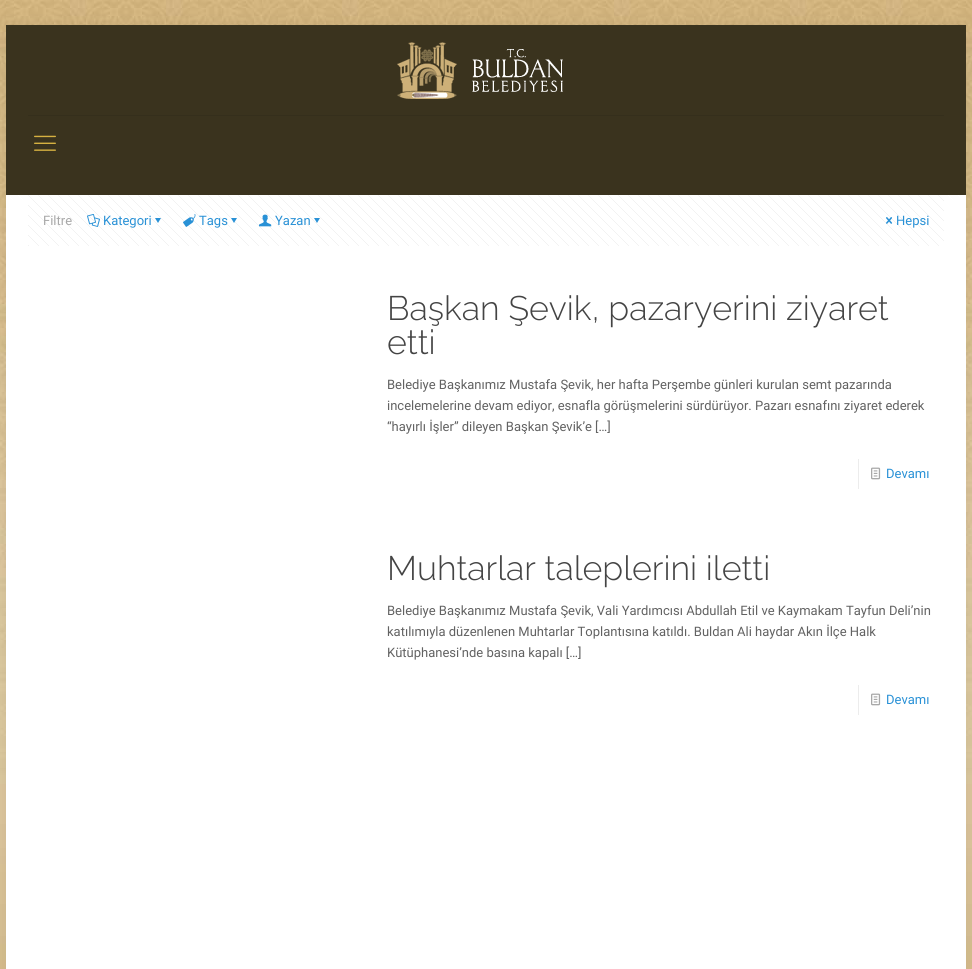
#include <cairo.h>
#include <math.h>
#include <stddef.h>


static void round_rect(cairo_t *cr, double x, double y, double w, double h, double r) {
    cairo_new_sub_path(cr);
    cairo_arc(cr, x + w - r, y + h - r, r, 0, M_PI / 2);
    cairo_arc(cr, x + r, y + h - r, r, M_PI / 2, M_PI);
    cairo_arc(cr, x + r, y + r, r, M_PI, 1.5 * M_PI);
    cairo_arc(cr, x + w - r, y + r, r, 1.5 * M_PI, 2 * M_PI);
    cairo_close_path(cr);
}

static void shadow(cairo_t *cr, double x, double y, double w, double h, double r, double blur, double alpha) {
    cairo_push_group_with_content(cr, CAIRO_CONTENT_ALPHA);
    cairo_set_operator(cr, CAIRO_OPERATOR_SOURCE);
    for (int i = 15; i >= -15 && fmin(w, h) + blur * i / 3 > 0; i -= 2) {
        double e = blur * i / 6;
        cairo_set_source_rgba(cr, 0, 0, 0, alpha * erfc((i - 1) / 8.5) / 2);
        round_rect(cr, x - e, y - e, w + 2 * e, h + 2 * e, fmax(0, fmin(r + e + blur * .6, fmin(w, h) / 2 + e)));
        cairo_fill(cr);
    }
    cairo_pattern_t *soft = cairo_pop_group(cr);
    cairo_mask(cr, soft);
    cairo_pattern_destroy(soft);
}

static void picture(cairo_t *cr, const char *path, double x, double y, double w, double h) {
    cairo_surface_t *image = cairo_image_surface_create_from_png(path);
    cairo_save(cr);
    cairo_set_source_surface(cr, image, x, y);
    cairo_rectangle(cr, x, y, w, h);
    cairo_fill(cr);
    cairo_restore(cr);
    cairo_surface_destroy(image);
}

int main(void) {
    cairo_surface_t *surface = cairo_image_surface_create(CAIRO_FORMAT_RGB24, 972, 969);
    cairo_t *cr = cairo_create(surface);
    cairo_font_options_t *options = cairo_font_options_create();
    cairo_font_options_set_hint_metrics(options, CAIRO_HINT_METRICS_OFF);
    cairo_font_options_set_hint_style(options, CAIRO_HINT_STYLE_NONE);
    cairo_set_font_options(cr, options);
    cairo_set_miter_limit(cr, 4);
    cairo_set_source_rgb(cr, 1, 1, 1);
    cairo_paint(cr);
    picture(cr, "img1.png", 0, 0, 972, 969);
    cairo_set_source_rgb(cr, 0, 0, 0);
    shadow(cr, 6, 25, 960, 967, 0, 7.5, 0.06);
    cairo_set_source_rgb(cr, 1, 1, 1);
    cairo_rectangle(cr, 6, 195, 960, 774);
    cairo_fill(cr);
    cairo_set_source_rgb(cr, 0.227, 0.2, 0.118);
    cairo_rectangle(cr, 6, 25, 960, 170);
    cairo_fill(cr);
    cairo_set_source_rgb(cr, 0.208, 0.184, 0.11);
    cairo_rectangle(cr, 28, 115, 916, 1);
    cairo_fill(cr);
    picture(cr, "img2.png", 397, 42, 166, 57);
    picture(cr, "img3.png", 34, 135, 22, 16);
    picture(cr, "img4.png", 28, 195, 916, 51);
    cairo_select_font_face(cr, "Roboto", CAIRO_FONT_SLANT_NORMAL, CAIRO_FONT_WEIGHT_NORMAL);
    cairo_set_font_size(cr, 13);
    cairo_set_source_rgb(cr, 0.659, 0.659, 0.659);
    cairo_move_to(cr, 43, 225);
    cairo_show_text(cr, "Filtre");
    picture(cr, "img5.png", 87, 214, 13, 13);
    cairo_set_source_rgb(cr, 0.161, 0.569, 0.839);
    cairo_move_to(cr, 103, 225);
    cairo_show_text(cr, "Kategori");
    cairo_new_path(cr);
    cairo_move_to(cr, 161, 218);
    cairo_line_to(cr, 158, 223);
    cairo_line_to(cr, 155, 218);
    cairo_close_path(cr);
    cairo_fill(cr);
    picture(cr, "img6.png", 183, 214, 13, 13);
    cairo_move_to(cr, 199, 225);
    cairo_show_text(cr, "Tags");
    cairo_new_path(cr);
    cairo_move_to(cr, 237, 218);
    cairo_line_to(cr, 234, 223);
    cairo_line_to(cr, 231, 218);
    cairo_close_path(cr);
    cairo_fill(cr);
    picture(cr, "img7.png", 259, 214, 13, 13);
    cairo_move_to(cr, 275, 225);
    cairo_show_text(cr, "Yazan");
    cairo_new_path(cr);
    cairo_move_to(cr, 320, 218);
    cairo_line_to(cr, 317, 223);
    cairo_line_to(cr, 314, 218);
    cairo_close_path(cr);
    cairo_fill(cr);
    picture(cr, "img8.png", 886, 217, 7, 7);
    cairo_move_to(cr, 896, 225);
    cairo_show_text(cr, "Hepsi");
    cairo_select_font_face(cr, "Raleway Light", CAIRO_FONT_SLANT_NORMAL, CAIRO_FONT_WEIGHT_NORMAL);
    cairo_set_font_size(cr, 34);
    cairo_set_source_rgb(cr, 0.267, 0.267, 0.267);
    cairo_move_to(cr, 387, 320);
    cairo_show_text(cr, "Başkan Şevik, pazaryerini ziyaret");
    cairo_move_to(cr, 387, 354);
    cairo_show_text(cr, "etti");
    cairo_select_font_face(cr, "Roboto", CAIRO_FONT_SLANT_NORMAL, CAIRO_FONT_WEIGHT_NORMAL);
    cairo_set_font_size(cr, 13);
    cairo_set_source_rgb(cr, 0.384, 0.384, 0.384);
    cairo_move_to(cr, 387, 389);
    cairo_show_text(cr, "Belediye Başkanımız Mustafa Şevik, her hafta Perşembe günleri kurulan semt pazarında");
    cairo_move_to(cr, 387, 410);
    cairo_show_text(cr, "incelemelerine devam ediyor, esnafla görüşmelerini sürdürüyor. Pazarı esnafını ziyaret ederek");
    cairo_move_to(cr, 387, 431);
    cairo_show_text(cr, "“hayırlı İşler” dileyen Başkan Şevik’e […]");
    cairo_set_source_rgb(cr, 0.922, 0.922, 0.922);
    cairo_rectangle(cr, 858, 459, 1, 30);
    cairo_fill(cr);
    picture(cr, "img9.png", 871, 467, 10, 13);
    cairo_set_source_rgb(cr, 0.161, 0.569, 0.839);
    cairo_move_to(cr, 886, 478);
    cairo_show_text(cr, "Devamı");
    cairo_select_font_face(cr, "Raleway Light", CAIRO_FONT_SLANT_NORMAL, CAIRO_FONT_WEIGHT_NORMAL);
    cairo_set_font_size(cr, 34);
    cairo_set_source_rgb(cr, 0.267, 0.267, 0.267);
    cairo_move_to(cr, 387, 580);
    cairo_show_text(cr, "Muhtarlar taleplerini iletti");
    cairo_select_font_face(cr, "Roboto", CAIRO_FONT_SLANT_NORMAL, CAIRO_FONT_WEIGHT_NORMAL);
    cairo_set_font_size(cr, 13);
    cairo_set_source_rgb(cr, 0.384, 0.384, 0.384);
    cairo_move_to(cr, 387, 615);
    cairo_show_text(cr, "Belediye Başkanımız Mustafa Şevik, Vali Yardımcısı Abdullah Etil ve Kaymakam Tayfun Deli’nin");
    cairo_move_to(cr, 387, 636);
    cairo_show_text(cr, "katılımıyla düzenlenen Muhtarlar Toplantısına katıldı. Buldan Ali haydar Akın İlçe Halk");
    cairo_move_to(cr, 387, 657);
    cairo_show_text(cr, "Kütüphanesi’nde basına kapalı […]");
    cairo_set_source_rgb(cr, 0.922, 0.922, 0.922);
    cairo_rectangle(cr, 858, 685, 1, 30);
    cairo_fill(cr);
    picture(cr, "img9.png", 871, 693, 10, 13);
    cairo_set_source_rgb(cr, 0.161, 0.569, 0.839);
    cairo_move_to(cr, 886, 704);
    cairo_show_text(cr, "Devamı");
    cairo_surface_write_to_png(surface, "page.png");
    cairo_font_options_destroy(options);
    cairo_destroy(cr);
    cairo_surface_destroy(surface);
    return 0;
}
